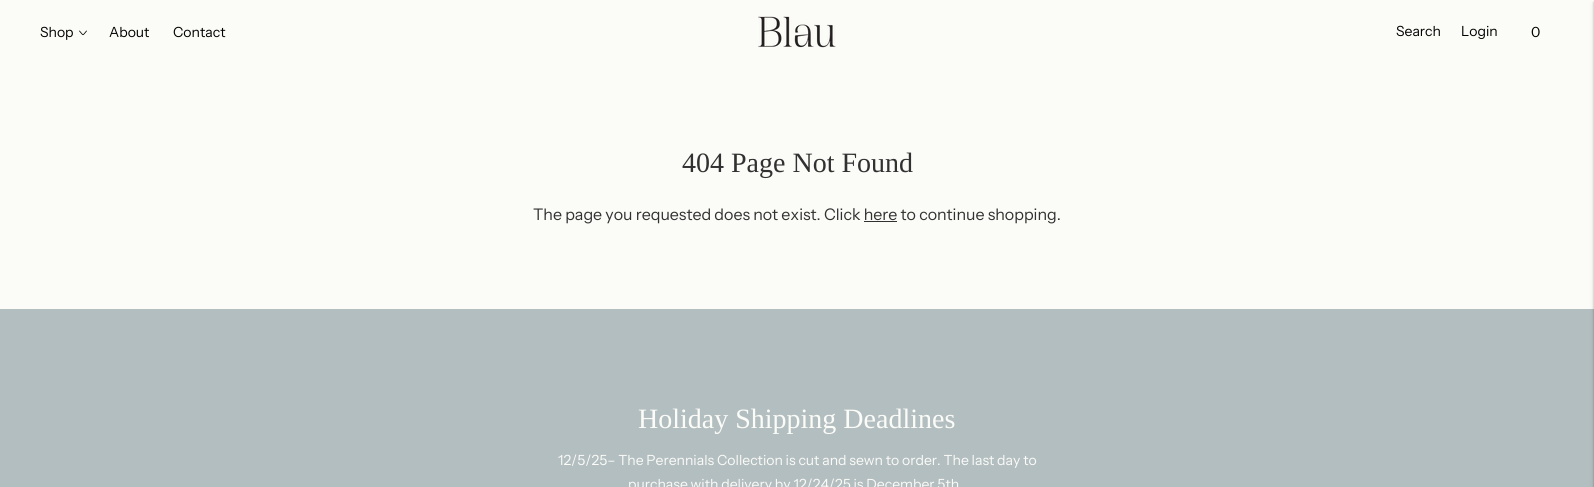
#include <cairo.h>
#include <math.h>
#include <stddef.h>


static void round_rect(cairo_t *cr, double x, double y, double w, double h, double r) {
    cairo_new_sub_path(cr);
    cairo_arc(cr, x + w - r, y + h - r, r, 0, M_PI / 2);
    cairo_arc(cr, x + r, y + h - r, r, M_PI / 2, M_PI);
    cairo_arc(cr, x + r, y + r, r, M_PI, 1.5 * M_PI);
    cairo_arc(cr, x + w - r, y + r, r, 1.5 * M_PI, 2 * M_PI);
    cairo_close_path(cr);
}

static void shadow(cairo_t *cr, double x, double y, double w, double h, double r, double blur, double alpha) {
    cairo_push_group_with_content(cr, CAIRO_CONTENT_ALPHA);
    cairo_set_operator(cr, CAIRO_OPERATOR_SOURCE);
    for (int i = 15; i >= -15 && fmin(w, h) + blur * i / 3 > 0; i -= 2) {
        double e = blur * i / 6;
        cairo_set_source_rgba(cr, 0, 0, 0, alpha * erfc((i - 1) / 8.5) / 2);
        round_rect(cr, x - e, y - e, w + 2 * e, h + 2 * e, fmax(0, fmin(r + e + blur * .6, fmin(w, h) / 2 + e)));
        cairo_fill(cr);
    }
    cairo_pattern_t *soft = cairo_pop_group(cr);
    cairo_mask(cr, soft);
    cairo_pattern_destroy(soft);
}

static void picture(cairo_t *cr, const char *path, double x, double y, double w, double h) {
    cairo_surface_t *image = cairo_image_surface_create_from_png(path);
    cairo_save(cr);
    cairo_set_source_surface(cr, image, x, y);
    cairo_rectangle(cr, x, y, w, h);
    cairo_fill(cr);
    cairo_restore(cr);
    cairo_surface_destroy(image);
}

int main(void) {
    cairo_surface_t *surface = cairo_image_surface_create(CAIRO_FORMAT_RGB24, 1594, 487);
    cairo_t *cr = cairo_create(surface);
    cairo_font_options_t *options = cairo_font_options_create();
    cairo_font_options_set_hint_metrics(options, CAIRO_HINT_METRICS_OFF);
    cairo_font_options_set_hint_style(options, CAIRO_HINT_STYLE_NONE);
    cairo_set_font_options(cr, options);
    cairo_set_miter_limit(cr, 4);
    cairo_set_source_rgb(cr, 0.984, 0.984, 0.965);
    cairo_paint(cr);
    cairo_set_source_rgb(cr, 0.702, 0.745, 0.753);
    cairo_rectangle(cr, 0, 309, 1594, 178);
    cairo_fill(cr);
    cairo_set_source_rgb(cr, 0, 0, 0);
    shadow(cr, 1594, 4, 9, 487, 0, 3, 0.1);
    shadow(cr, 1594, 2, 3, 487, 0, 1, 0.15);
    cairo_select_font_face(cr, "Instrument Sans", CAIRO_FONT_SLANT_NORMAL, CAIRO_FONT_WEIGHT_NORMAL);
    cairo_set_font_size(cr, 14);
    cairo_set_source_rgb(cr, 0, 0, 0);
    cairo_move_to(cr, 40, 37);
    cairo_show_text(cr, "Shop");
    cairo_new_path(cr);
    cairo_move_to(cr, 79.5, 31);
    cairo_curve_to(cr, 84, 36, 82, 36, 86.5, 31);
    cairo_set_line_width(cr, 0.8);
    cairo_set_line_cap(cr, CAIRO_LINE_CAP_ROUND);
    cairo_set_line_join(cr, CAIRO_LINE_JOIN_ROUND);
    cairo_stroke(cr);
    cairo_move_to(cr, 109, 37);
    cairo_show_text(cr, "About");
    cairo_move_to(cr, 173, 37);
    cairo_show_text(cr, "Contact");
    picture(cr, "img1.png", 758, 16, 78, 32);
    cairo_move_to(cr, 1396, 36);
    cairo_show_text(cr, "Search");
    cairo_move_to(cr, 1461, 36);
    cairo_show_text(cr, "Login");
    cairo_move_to(cr, 1531, 37);
    cairo_show_text(cr, "0");
    cairo_set_source_rgb(cr, 0, 0, 0);
    shadow(cr, 1594, 2, 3, 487, 0, 1, 0.15);
    cairo_select_font_face(cr, "Liberation Serif", CAIRO_FONT_SLANT_NORMAL, CAIRO_FONT_WEIGHT_NORMAL);
    cairo_set_font_size(cr, 28);
    cairo_set_source_rgb(cr, 0.192, 0.192, 0.192);
    cairo_move_to(cr, 682, 172);
    cairo_show_text(cr, "404 Page Not Found");
    cairo_select_font_face(cr, "Instrument Sans", CAIRO_FONT_SLANT_NORMAL, CAIRO_FONT_WEIGHT_NORMAL);
    cairo_set_font_size(cr, 16);
    cairo_move_to(cr, 533, 220);
    cairo_show_text(cr, "The page you requested does not exist. Click here to continue shopping.");
    cairo_rectangle(cr, 864, 221, 33, 1);
    cairo_fill(cr);
    cairo_select_font_face(cr, "Liberation Serif", CAIRO_FONT_SLANT_NORMAL, CAIRO_FONT_WEIGHT_NORMAL);
    cairo_set_font_size(cr, 28);
    cairo_set_source_rgb(cr, 0.984, 0.984, 0.965);
    cairo_move_to(cr, 638, 428);
    cairo_show_text(cr, "Holiday Shipping Deadlines");
    cairo_select_font_face(cr, "Instrument Sans", CAIRO_FONT_SLANT_NORMAL, CAIRO_FONT_WEIGHT_NORMAL);
    cairo_set_font_size(cr, 14);
    cairo_move_to(cr, 558, 465);
    cairo_show_text(cr, "12/5/25– The Perennials Collection is cut and sewn to order. The last day to");
    cairo_move_to(cr, 628, 489);
    cairo_show_text(cr, "purchase with delivery by 12/24/25 is December 5th");
    cairo_surface_write_to_png(surface, "page.png");
    cairo_font_options_destroy(options);
    cairo_destroy(cr);
    cairo_surface_destroy(surface);
    return 0;
}
